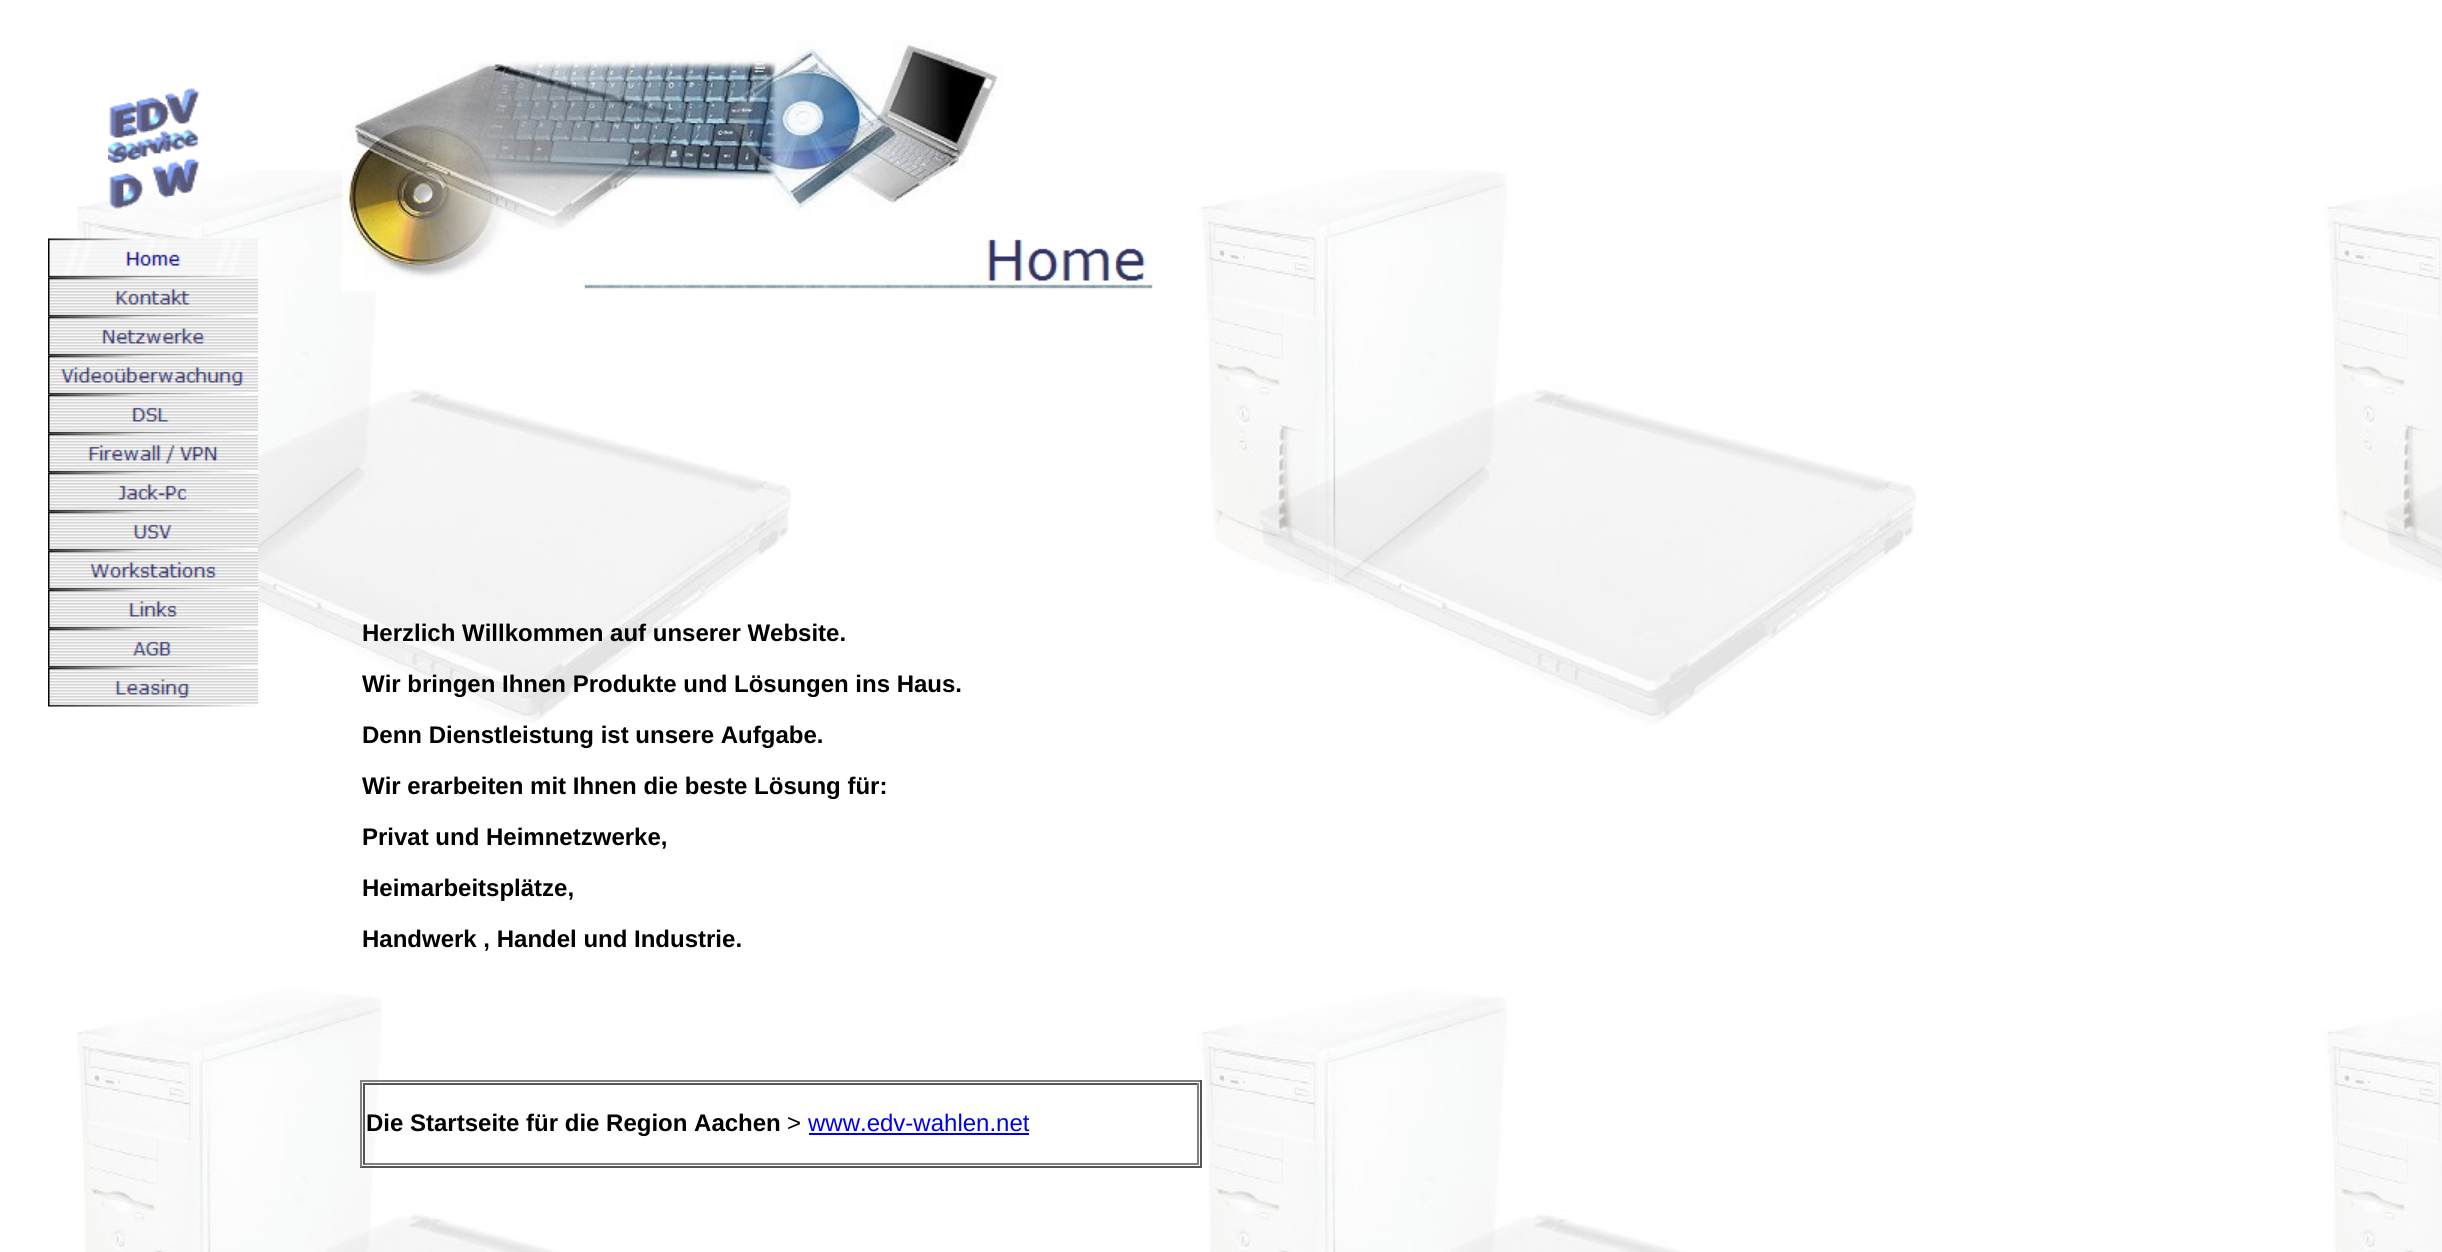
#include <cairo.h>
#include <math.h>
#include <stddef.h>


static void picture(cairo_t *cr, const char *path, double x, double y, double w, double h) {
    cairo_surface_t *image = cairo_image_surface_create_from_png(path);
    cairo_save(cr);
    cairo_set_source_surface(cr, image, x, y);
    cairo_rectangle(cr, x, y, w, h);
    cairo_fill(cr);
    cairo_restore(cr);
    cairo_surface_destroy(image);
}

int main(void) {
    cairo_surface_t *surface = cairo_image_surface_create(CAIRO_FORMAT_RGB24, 2442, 1252);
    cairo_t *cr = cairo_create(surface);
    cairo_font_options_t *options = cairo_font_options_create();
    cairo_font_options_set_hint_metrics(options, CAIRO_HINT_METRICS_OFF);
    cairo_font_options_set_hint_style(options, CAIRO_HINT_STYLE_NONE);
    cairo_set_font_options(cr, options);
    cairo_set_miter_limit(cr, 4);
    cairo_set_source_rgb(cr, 1, 1, 1);
    cairo_paint(cr);
    picture(cr, "img1.png", 77, 170, 2365, 1082);
    picture(cr, "img2.png", 108, 88, 92, 121);
    picture(cr, "img3.png", 48, 238, 210, 40);
    picture(cr, "img4.png", 48, 277, 210, 40);
    picture(cr, "img5.png", 48, 316, 210, 40);
    picture(cr, "img6.png", 48, 355, 210, 40);
    picture(cr, "img7.png", 48, 394, 210, 40);
    picture(cr, "img8.png", 48, 433, 210, 40);
    picture(cr, "img9.png", 48, 472, 210, 40);
    picture(cr, "img10.png", 48, 511, 210, 40);
    picture(cr, "img11.png", 48, 550, 210, 40);
    picture(cr, "img12.png", 48, 589, 210, 40);
    picture(cr, "img13.png", 48, 628, 210, 40);
    picture(cr, "img14.png", 48, 667, 210, 40);
    picture(cr, "img15.png", 342, 39, 812, 252);
    cairo_select_font_face(cr, "Liberation Sans", CAIRO_FONT_SLANT_NORMAL, CAIRO_FONT_WEIGHT_BOLD);
    cairo_set_font_size(cr, 24);
    cairo_set_source_rgb(cr, 0, 0, 0);
    cairo_move_to(cr, 362, 641);
    cairo_show_text(cr, "Herzlich Willkommen auf unserer Website.");
    cairo_move_to(cr, 362, 692);
    cairo_show_text(cr, "Wir bringen Ihnen Produkte und Lösungen ins Haus.");
    cairo_move_to(cr, 362, 743);
    cairo_show_text(cr, "Denn Dienstleistung ist unsere Aufgabe.");
    cairo_move_to(cr, 362, 794);
    cairo_show_text(cr, "Wir erarbeiten mit Ihnen die beste Lösung für:");
    cairo_move_to(cr, 362, 845);
    cairo_show_text(cr, "Privat und Heimnetzwerke,");
    cairo_move_to(cr, 362, 896);
    cairo_show_text(cr, "Heimarbeitsplätze,");
    cairo_move_to(cr, 362, 947);
    cairo_show_text(cr, "Handwerk , Handel und Industrie.");
    cairo_set_source_rgb(cr, 0.502, 0.502, 0.502);
    cairo_rectangle(cr, 360, 1080, 842, 2);
    cairo_fill(cr);
    cairo_set_source_rgb(cr, 0.333, 0.333, 0.333);
    cairo_rectangle(cr, 1200, 1080, 2, 87);
    cairo_fill(cr);
    cairo_rectangle(cr, 360, 1166, 842, 2);
    cairo_fill(cr);
    cairo_set_source_rgb(cr, 0.502, 0.502, 0.502);
    cairo_rectangle(cr, 360, 1080, 2, 87);
    cairo_fill(cr);
    cairo_set_source_rgb(cr, 0.333, 0.333, 0.333);
    cairo_rectangle(cr, 363, 1083, 836, 2);
    cairo_fill(cr);
    cairo_set_source_rgb(cr, 0.502, 0.502, 0.502);
    cairo_rectangle(cr, 1197, 1083, 2, 81);
    cairo_fill(cr);
    cairo_rectangle(cr, 363, 1163, 836, 2);
    cairo_fill(cr);
    cairo_set_source_rgb(cr, 0.333, 0.333, 0.333);
    cairo_rectangle(cr, 363, 1083, 2, 81);
    cairo_fill(cr);
    cairo_set_source_rgb(cr, 0, 0, 0);
    cairo_move_to(cr, 366, 1131);
    cairo_show_text(cr, "Die Startseite für die Region Aachen");
    cairo_select_font_face(cr, "Liberation Sans", CAIRO_FONT_SLANT_NORMAL, CAIRO_FONT_WEIGHT_NORMAL);
    cairo_move_to(cr, 787, 1131);
    cairo_show_text(cr, ">");
    cairo_set_source_rgb(cr, 0, 0, 0.933);
    cairo_move_to(cr, 808, 1131);
    cairo_show_text(cr, "www.edv-wahlen.net");
    cairo_rectangle(cr, 809, 1133, 220, 2);
    cairo_fill(cr);
    cairo_surface_write_to_png(surface, "page.png");
    cairo_font_options_destroy(options);
    cairo_destroy(cr);
    cairo_surface_destroy(surface);
    return 0;
}
